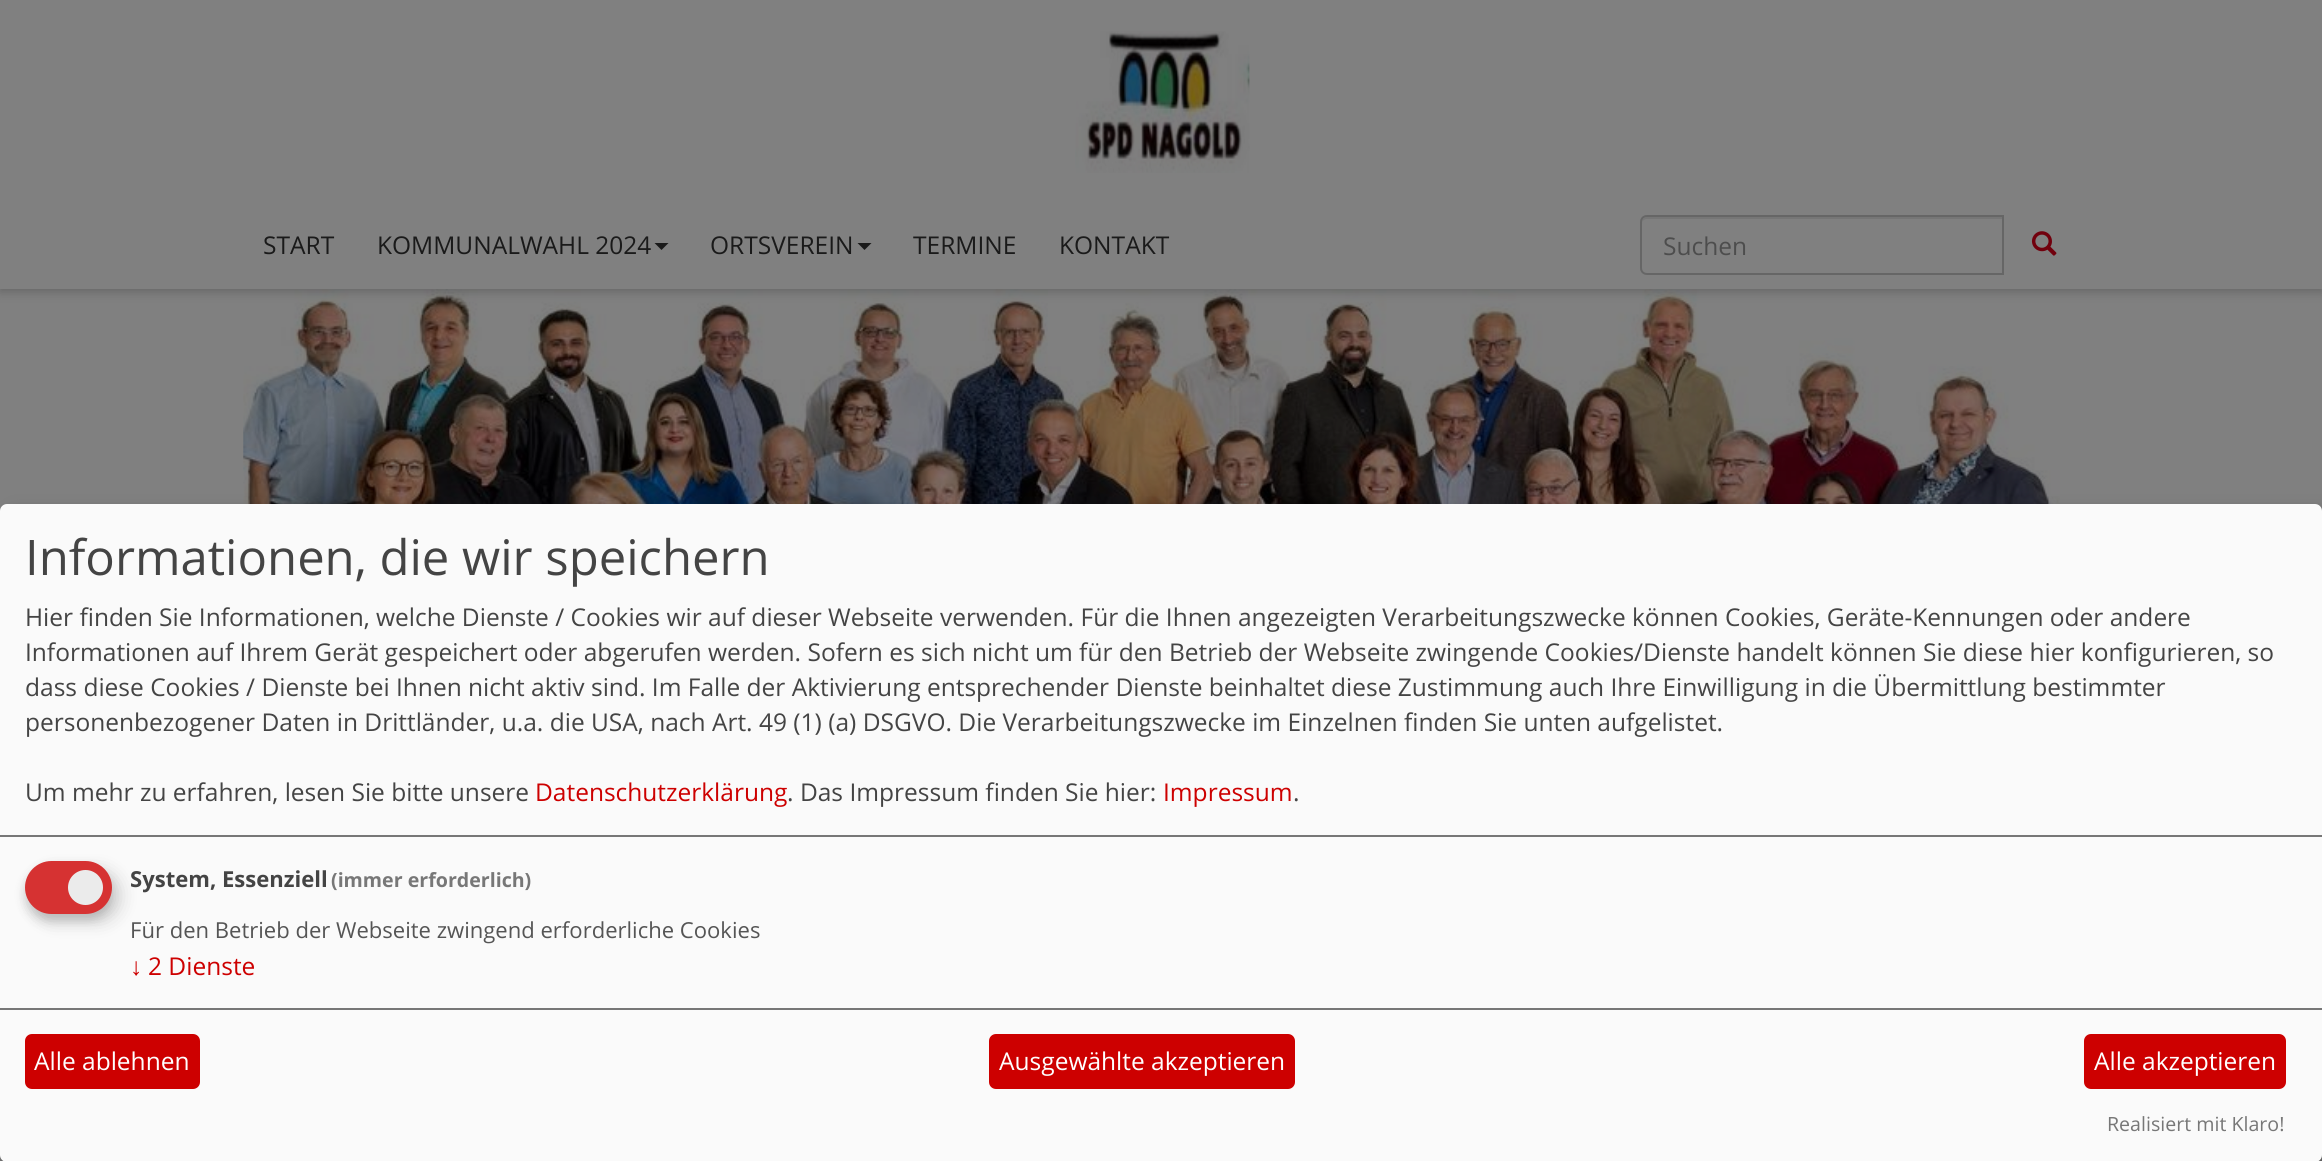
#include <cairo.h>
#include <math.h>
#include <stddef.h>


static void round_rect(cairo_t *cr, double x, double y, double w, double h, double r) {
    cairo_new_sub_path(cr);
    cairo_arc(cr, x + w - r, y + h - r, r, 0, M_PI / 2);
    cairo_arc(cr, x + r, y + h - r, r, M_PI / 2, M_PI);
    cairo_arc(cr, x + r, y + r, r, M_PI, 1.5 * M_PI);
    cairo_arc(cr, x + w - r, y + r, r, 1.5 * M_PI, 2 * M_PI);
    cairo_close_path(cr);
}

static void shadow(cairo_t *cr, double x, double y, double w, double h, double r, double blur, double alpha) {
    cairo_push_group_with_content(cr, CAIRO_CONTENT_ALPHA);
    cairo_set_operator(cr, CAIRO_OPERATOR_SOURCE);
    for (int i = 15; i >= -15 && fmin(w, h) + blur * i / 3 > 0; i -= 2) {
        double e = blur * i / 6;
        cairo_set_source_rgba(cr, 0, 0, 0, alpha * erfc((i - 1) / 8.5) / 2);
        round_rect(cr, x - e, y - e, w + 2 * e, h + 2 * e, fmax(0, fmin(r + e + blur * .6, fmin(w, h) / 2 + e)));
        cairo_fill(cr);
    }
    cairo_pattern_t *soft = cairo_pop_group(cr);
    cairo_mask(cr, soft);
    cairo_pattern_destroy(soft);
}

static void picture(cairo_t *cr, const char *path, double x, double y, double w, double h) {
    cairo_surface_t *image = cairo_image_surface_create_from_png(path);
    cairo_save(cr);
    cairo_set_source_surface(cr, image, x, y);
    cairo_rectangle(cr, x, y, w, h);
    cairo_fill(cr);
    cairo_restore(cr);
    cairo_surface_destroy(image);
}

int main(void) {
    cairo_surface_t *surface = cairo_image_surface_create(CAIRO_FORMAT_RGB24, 2322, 1161);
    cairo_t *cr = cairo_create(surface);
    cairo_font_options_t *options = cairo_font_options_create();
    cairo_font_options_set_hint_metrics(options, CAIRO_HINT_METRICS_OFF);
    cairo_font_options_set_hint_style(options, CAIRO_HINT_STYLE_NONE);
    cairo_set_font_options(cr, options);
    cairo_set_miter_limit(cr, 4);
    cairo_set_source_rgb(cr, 0.502, 0.502, 0.502);
    cairo_paint(cr);
    picture(cr, "img3.png", 243, 289, 1838, 215);
    cairo_set_source_rgb(cr, 0, 0, 0);
    shadow(cr, 0, 4, 2322, 288, 0, 5, 0.2);
    cairo_set_source_rgb(cr, 0.502, 0.502, 0.502);
    cairo_rectangle(cr, 0, 0, 2322, 289);
    cairo_fill(cr);
    picture(cr, "img1.png", 1075, 31, 175, 142);
    cairo_select_font_face(cr, "Open Sans", CAIRO_FONT_SLANT_NORMAL, CAIRO_FONT_WEIGHT_NORMAL);
    cairo_set_font_size(cr, 24.5);
    cairo_set_source_rgb(cr, 0.102, 0.102, 0.102);
    cairo_move_to(cr, 263, 254);
    cairo_show_text(cr, "START");
    cairo_move_to(cr, 377, 254);
    cairo_show_text(cr, "KOMMUNALWAHL 2024");
    cairo_new_path(cr);
    cairo_move_to(cr, 654.5, 243);
    cairo_line_to(cr, 668.5, 243);
    cairo_line_to(cr, 661.5, 250);
    cairo_close_path(cr);
    cairo_fill(cr);
    cairo_move_to(cr, 710, 254);
    cairo_show_text(cr, "ORTSVEREIN");
    cairo_new_path(cr);
    cairo_move_to(cr, 857.5, 243);
    cairo_line_to(cr, 871.5, 243);
    cairo_line_to(cr, 864.5, 250);
    cairo_close_path(cr);
    cairo_fill(cr);
    cairo_move_to(cr, 913, 254);
    cairo_show_text(cr, "TERMINE");
    cairo_move_to(cr, 1059, 254);
    cairo_show_text(cr, "KONTAKT");
    cairo_set_source_rgb(cr, 0.463, 0.463, 0.463);
    cairo_new_path(cr);
    cairo_move_to(cr, 1647, 219);
    cairo_line_to(cr, 2002, 219);
    cairo_line_to(cr, 2002, 217);
    cairo_line_to(cr, 1647, 217);
    cairo_curve_to(cr, 1643, 217, 1642, 221, 1642, 224);
    cairo_curve_to(cr, 1642, 221, 1644, 219, 1647, 219);
    cairo_close_path(cr);
    cairo_fill(cr);
    cairo_new_path(cr);
    cairo_move_to(cr, 1647, 216);
    cairo_line_to(cr, 2003, 216);
    cairo_line_to(cr, 2003, 274);
    cairo_line_to(cr, 1647, 274);
    cairo_curve_to(cr, 1643.5, 274, 1641, 271.5, 1641, 268);
    cairo_line_to(cr, 1641, 222);
    cairo_curve_to(cr, 1641, 218.5, 1643.5, 216, 1647, 216);
    cairo_close_path(cr);
    cairo_set_source_rgb(cr, 0.4, 0.4, 0.4);
    cairo_stroke(cr);
    cairo_set_source_rgb(cr, 0.302, 0.302, 0.302);
    cairo_move_to(cr, 1663, 255);
    cairo_show_text(cr, "Suchen");
    picture(cr, "img2.png", 2031, 231, 26, 25);
    cairo_set_source_rgb(cr, 0, 0, 0);
    shadow(cr, 9, 513, 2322, 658, 7, 9, 0.19);
    shadow(cr, 0, 511, 2322, 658, 7, 5, 0.2);
    cairo_set_source_rgb(cr, 0.98, 0.98, 0.98);
    round_rect(cr, 0, 504, 2322, 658, 7);
    cairo_fill(cr);
    cairo_set_source_rgb(cr, 0.467, 0.467, 0.467);
    cairo_rectangle(cr, 0, 835, 2322, 2);
    cairo_fill(cr);
    cairo_set_font_size(cr, 49);
    cairo_set_source_rgb(cr, 0.267, 0.267, 0.267);
    cairo_move_to(cr, 25, 575);
    cairo_show_text(cr, "Informationen, die wir speichern");
    cairo_set_font_size(cr, 24.5);
    cairo_move_to(cr, 25, 626);
    cairo_show_text(cr, "Hier finden Sie Informationen, welche Dienste / Cookies wir auf dieser Webseite verwenden. Für die Ihnen angezeigten Verarbeitungszwecke können Cookies, Geräte-Kennungen oder andere");
    cairo_move_to(cr, 25, 661);
    cairo_show_text(cr, "Informationen auf Ihrem Gerät gespeichert oder abgerufen werden. Sofern es sich nicht um für den Betrieb der Webseite zwingende Cookies/Dienste handelt können Sie diese hier konfigurieren, so");
    cairo_move_to(cr, 25, 696);
    cairo_show_text(cr, "dass diese Cookies / Dienste bei Ihnen nicht aktiv sind. Im Falle der Aktivierung entsprechender Dienste beinhaltet diese Zustimmung auch Ihre Einwilligung in die Übermittlung bestimmter");
    cairo_move_to(cr, 25, 731);
    cairo_show_text(cr, "personenbezogener Daten in Drittländer, u.a. die USA, nach Art. 49 (1) (a) DSGVO. Die Verarbeitungszwecke im Einzelnen finden Sie unten aufgelistet.");
    cairo_move_to(cr, 25, 801);
    cairo_show_text(cr, "Um mehr zu erfahren, lesen Sie bitte unsere");
    cairo_set_source_rgb(cr, 0.804, 0, 0);
    cairo_move_to(cr, 535, 801);
    cairo_show_text(cr, "Datenschutzerklärung");
    cairo_set_source_rgb(cr, 0.267, 0.267, 0.267);
    cairo_move_to(cr, 787, 801);
    cairo_show_text(cr, ". Das Impressum finden Sie hier:");
    cairo_set_source_rgb(cr, 0.804, 0, 0);
    cairo_move_to(cr, 1163, 801);
    cairo_show_text(cr, "Impressum");
    cairo_set_source_rgb(cr, 0.267, 0.267, 0.267);
    cairo_move_to(cr, 1293, 801);
    cairo_show_text(cr, ".");
    cairo_set_source_rgb(cr, 0, 0, 0);
    shadow(cr, 33, 870, 88, 52, 26, 9, 0.15);
    cairo_set_source_rgb(cr, 0.196, 0.196, 0.196);
    shadow(cr, 25, 868, 87, 53, 26.5, 5, 0.2);
    cairo_set_source_rgb(cr, 0.839, 0.196, 0.196);
    round_rect(cr, 25, 861, 87, 53, 26.5);
    cairo_fill(cr);
    cairo_set_source_rgb(cr, 0.918, 0.918, 0.918);
    cairo_arc(cr, 85.5, 887.5, 17.5, 0, 2 * M_PI);
    cairo_fill(cr);
    cairo_select_font_face(cr, "Open Sans", CAIRO_FONT_SLANT_NORMAL, CAIRO_FONT_WEIGHT_BOLD);
    cairo_set_font_size(cr, 22.05);
    cairo_set_source_rgb(cr, 0.267, 0.267, 0.267);
    cairo_move_to(cr, 130, 887);
    cairo_show_text(cr, "System, Essenziell");
    cairo_set_font_size(cr, 19.6);
    cairo_set_source_rgb(cr, 0.467, 0.467, 0.467);
    cairo_move_to(cr, 331, 887);
    cairo_show_text(cr, "(immer erforderlich)");
    cairo_select_font_face(cr, "Open Sans", CAIRO_FONT_SLANT_NORMAL, CAIRO_FONT_WEIGHT_NORMAL);
    cairo_set_font_size(cr, 22.05);
    cairo_set_source_rgb(cr, 0.333, 0.333, 0.333);
    cairo_move_to(cr, 130, 938);
    cairo_show_text(cr, "Für den Betrieb der Webseite zwingend erforderliche Cookies");
    cairo_select_font_face(cr, "Liberation Sans", CAIRO_FONT_SLANT_NORMAL, CAIRO_FONT_WEIGHT_NORMAL);
    cairo_set_font_size(cr, 24.5);
    cairo_set_source_rgb(cr, 0.804, 0, 0);
    cairo_move_to(cr, 130, 975);
    cairo_show_text(cr, "↓");
    cairo_select_font_face(cr, "Open Sans", CAIRO_FONT_SLANT_NORMAL, CAIRO_FONT_WEIGHT_NORMAL);
    cairo_move_to(cr, 148, 975);
    cairo_show_text(cr, "2 Dienste");
    cairo_set_source_rgb(cr, 0.467, 0.467, 0.467);
    cairo_rectangle(cr, 0, 1008, 2322, 2);
    cairo_fill(cr);
    cairo_set_source_rgb(cr, 0.804, 0, 0);
    round_rect(cr, 25, 1034, 175, 55, 7);
    cairo_fill(cr);
    cairo_set_source_rgb(cr, 1, 1, 1);
    cairo_move_to(cr, 34, 1070);
    cairo_show_text(cr, "Alle ablehnen");
    cairo_set_source_rgb(cr, 0.804, 0, 0);
    round_rect(cr, 989, 1034, 306, 55, 7);
    cairo_fill(cr);
    cairo_set_source_rgb(cr, 1, 1, 1);
    cairo_move_to(cr, 999, 1070);
    cairo_show_text(cr, "Ausgewählte akzeptieren");
    cairo_set_source_rgb(cr, 0.804, 0, 0);
    round_rect(cr, 2084, 1034, 202, 55, 7);
    cairo_fill(cr);
    cairo_set_source_rgb(cr, 1, 1, 1);
    cairo_move_to(cr, 2094, 1070);
    cairo_show_text(cr, "Alle akzeptieren");
    cairo_set_font_size(cr, 19.6);
    cairo_set_source_rgb(cr, 0.467, 0.467, 0.467);
    cairo_move_to(cr, 2107, 1131);
    cairo_show_text(cr, "Realisiert mit Klaro!");
    cairo_surface_write_to_png(surface, "page.png");
    cairo_font_options_destroy(options);
    cairo_destroy(cr);
    cairo_surface_destroy(surface);
    return 0;
}
